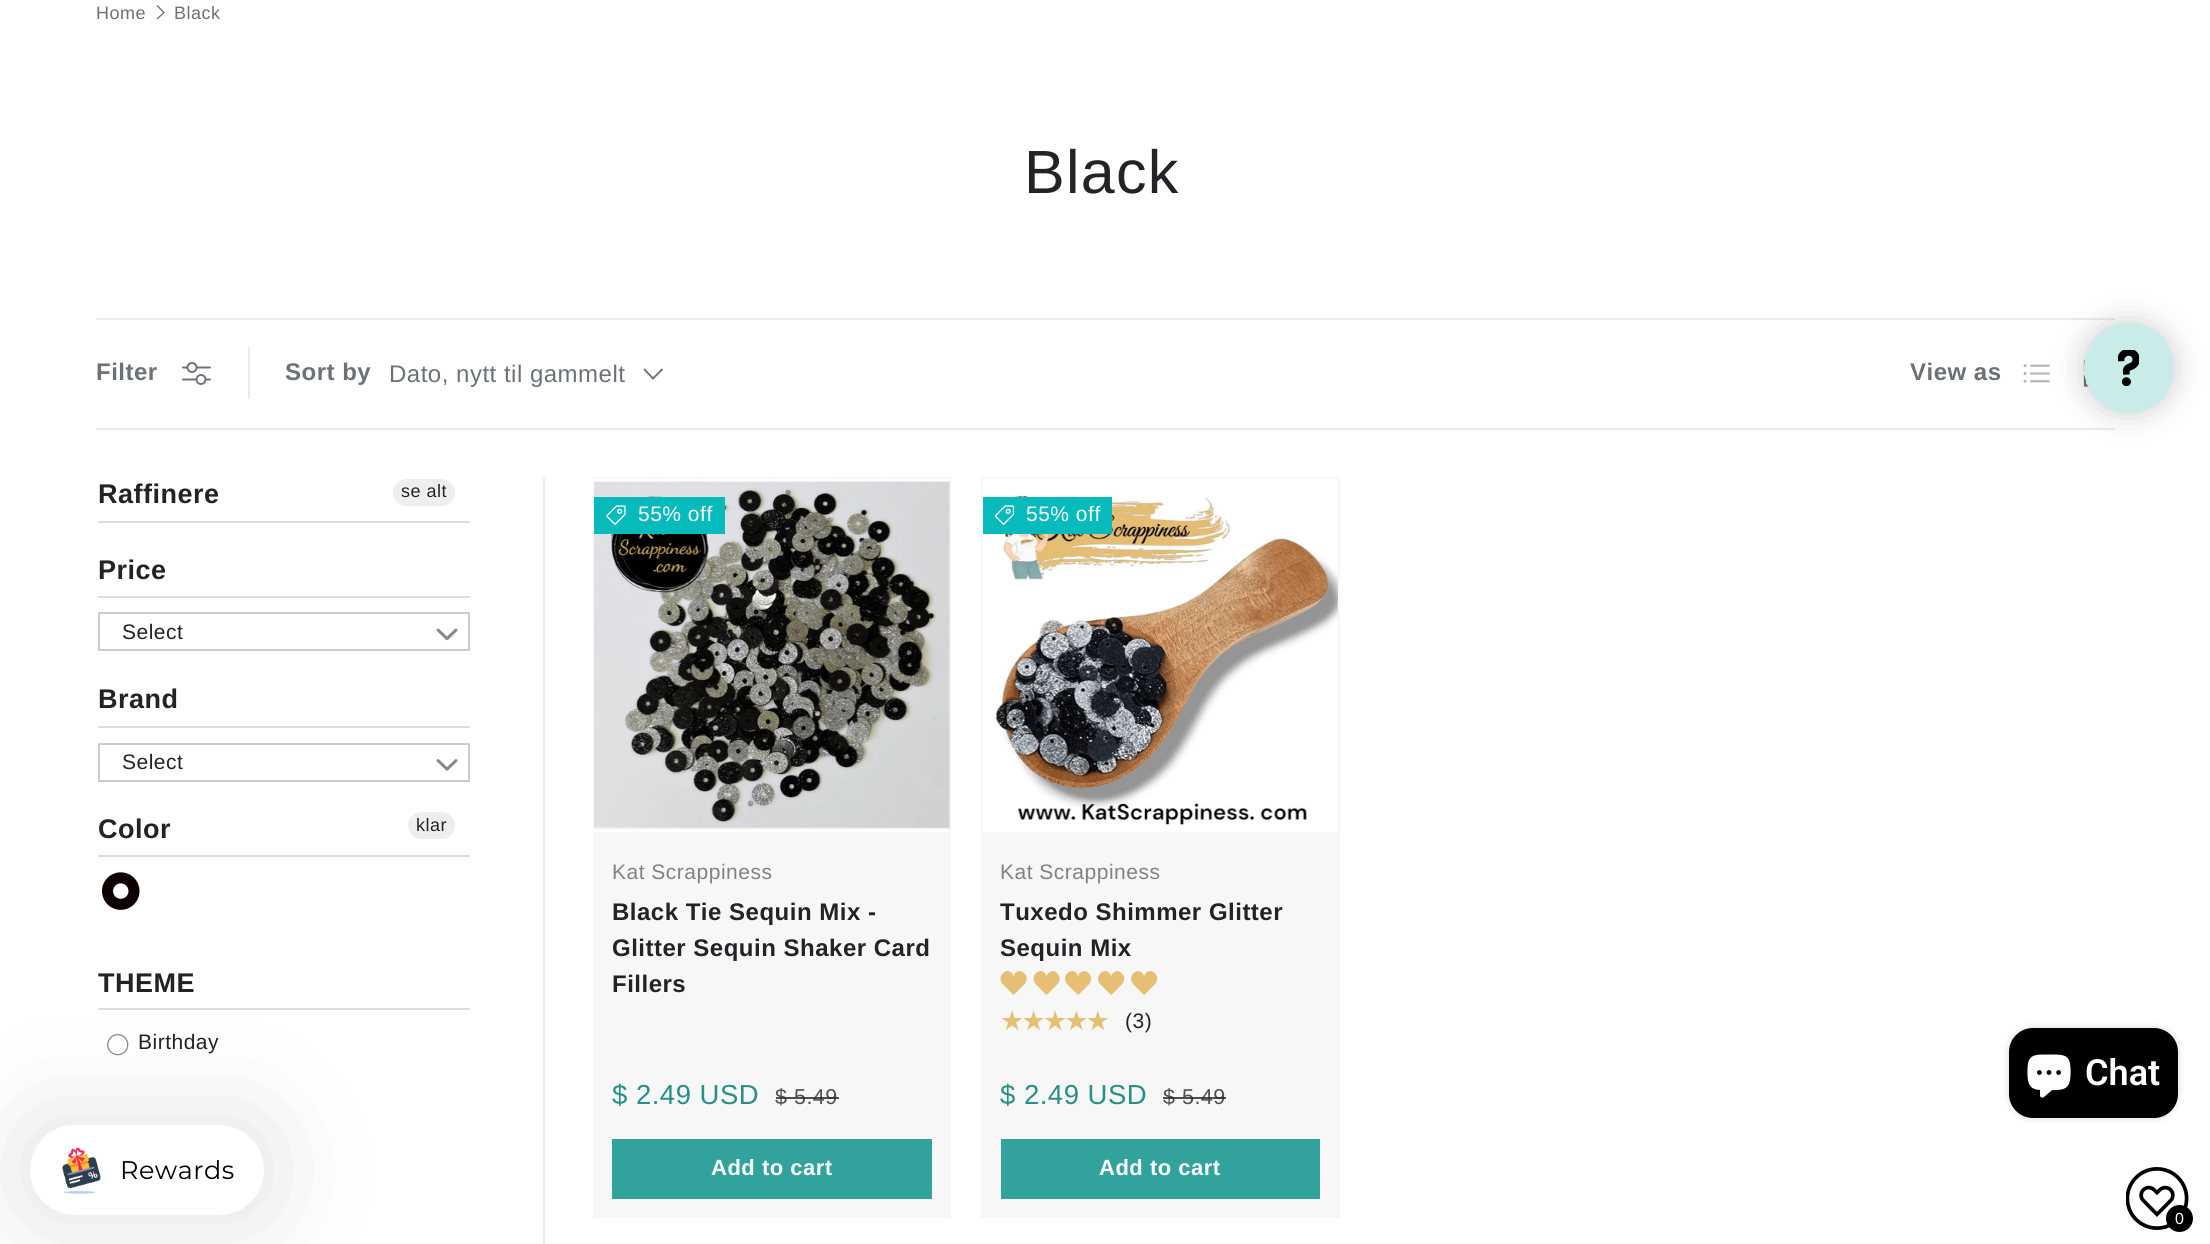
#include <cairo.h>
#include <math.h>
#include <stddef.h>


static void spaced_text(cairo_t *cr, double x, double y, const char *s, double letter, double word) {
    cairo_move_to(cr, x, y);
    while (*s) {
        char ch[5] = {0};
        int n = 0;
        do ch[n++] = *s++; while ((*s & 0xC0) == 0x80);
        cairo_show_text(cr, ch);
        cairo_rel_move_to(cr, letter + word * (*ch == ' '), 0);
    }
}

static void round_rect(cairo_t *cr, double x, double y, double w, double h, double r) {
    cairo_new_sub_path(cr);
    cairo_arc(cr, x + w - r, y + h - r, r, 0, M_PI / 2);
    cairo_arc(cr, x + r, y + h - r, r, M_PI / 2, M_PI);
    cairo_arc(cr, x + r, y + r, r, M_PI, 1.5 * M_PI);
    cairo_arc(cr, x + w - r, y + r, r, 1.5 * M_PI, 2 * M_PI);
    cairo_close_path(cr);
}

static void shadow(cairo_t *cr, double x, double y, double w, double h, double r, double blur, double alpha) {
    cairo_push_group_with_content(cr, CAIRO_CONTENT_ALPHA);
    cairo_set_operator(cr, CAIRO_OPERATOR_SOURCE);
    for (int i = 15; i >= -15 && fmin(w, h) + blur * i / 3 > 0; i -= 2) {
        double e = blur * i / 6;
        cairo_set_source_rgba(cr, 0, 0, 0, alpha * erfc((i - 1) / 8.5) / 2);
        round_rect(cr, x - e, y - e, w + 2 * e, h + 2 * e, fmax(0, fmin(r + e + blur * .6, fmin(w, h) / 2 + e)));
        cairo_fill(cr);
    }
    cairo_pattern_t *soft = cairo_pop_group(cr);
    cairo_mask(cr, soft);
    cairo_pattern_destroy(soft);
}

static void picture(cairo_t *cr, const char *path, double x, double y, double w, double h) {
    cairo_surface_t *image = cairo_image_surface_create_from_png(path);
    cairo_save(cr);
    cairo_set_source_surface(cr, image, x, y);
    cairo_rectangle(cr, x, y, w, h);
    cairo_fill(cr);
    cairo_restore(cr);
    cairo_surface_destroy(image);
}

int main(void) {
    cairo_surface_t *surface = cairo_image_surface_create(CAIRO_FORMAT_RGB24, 2210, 1244);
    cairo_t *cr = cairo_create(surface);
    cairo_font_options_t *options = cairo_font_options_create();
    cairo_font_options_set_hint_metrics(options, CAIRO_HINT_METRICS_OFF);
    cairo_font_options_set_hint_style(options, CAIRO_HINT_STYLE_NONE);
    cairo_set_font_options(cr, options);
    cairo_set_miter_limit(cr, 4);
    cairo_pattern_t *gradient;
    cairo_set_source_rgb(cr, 1, 1, 1);
    cairo_paint(cr);
    cairo_select_font_face(cr, "Liberation Sans", CAIRO_FONT_SLANT_NORMAL, CAIRO_FONT_WEIGHT_NORMAL);
    cairo_set_font_size(cr, 18);
    cairo_set_source_rgb(cr, 0.42, 0.443, 0.467);
    spaced_text(cr, 96, 19, "Home", 0.5, 0);
    cairo_new_path(cr);
    cairo_move_to(cr, 157, 5.5);
    cairo_line_to(cr, 164, 12.5);
    cairo_line_to(cr, 157, 19);
    cairo_set_line_width(cr, 1.3);
    cairo_stroke(cr);
    spaced_text(cr, 174, 19, "Black", 0.5, 0);
    cairo_set_font_size(cr, 61);
    cairo_set_source_rgb(cr, 0.129, 0.137, 0.149);
    spaced_text(cr, 1024, 193, "Black", 1.25, 0);
    cairo_set_source_rgb(cr, 0.914, 0.918, 0.922);
    cairo_rectangle(cr, 96, 318, 2019, 2);
    cairo_fill(cr);
    cairo_rectangle(cr, 96, 428, 2019, 2);
    cairo_fill(cr);
    cairo_select_font_face(cr, "Liberation Sans", CAIRO_FONT_SLANT_NORMAL, CAIRO_FONT_WEIGHT_BOLD);
    cairo_set_font_size(cr, 24);
    cairo_set_source_rgb(cr, 0.42, 0.443, 0.467);
    spaced_text(cr, 96, 380, "Filter", 0.5, 0);
    picture(cr, "img1.png", 182, 362, 29, 23);
    cairo_set_source_rgb(cr, 0.914, 0.918, 0.922);
    cairo_rectangle(cr, 248, 347, 2, 52);
    cairo_fill(cr);
    cairo_set_source_rgb(cr, 0.42, 0.443, 0.467);
    spaced_text(cr, 285, 380, "Sort by", 0.5, 0);
    cairo_select_font_face(cr, "Liberation Sans", CAIRO_FONT_SLANT_NORMAL, CAIRO_FONT_WEIGHT_NORMAL);
    spaced_text(cr, 389, 382, "Dato, nytt til gammelt", 0.5, 0);
    cairo_new_path(cr);
    cairo_move_to(cr, 662.5, 369);
    cairo_line_to(cr, 653, 378.5);
    cairo_line_to(cr, 644, 369);
    cairo_set_line_width(cr, 1.9);
    cairo_stroke(cr);
    cairo_select_font_face(cr, "Liberation Sans", CAIRO_FONT_SLANT_NORMAL, CAIRO_FONT_WEIGHT_BOLD);
    spaced_text(cr, 1910, 380, "View as", 0.5, 0);
    picture(cr, "img2.png", 2023, 364, 27, 19);
    picture(cr, "img3.png", 2083, 360, 6, 27);
    cairo_set_source_rgb(cr, 0.914, 0.918, 0.922);
    cairo_rectangle(cr, 543, 477, 2, 767);
    cairo_fill(cr);
    cairo_set_source_rgb(cr, 0.867, 0.867, 0.867);
    cairo_rectangle(cr, 98, 521, 372, 2);
    cairo_fill(cr);
    cairo_set_font_size(cr, 27);
    cairo_set_source_rgb(cr, 0.129, 0.137, 0.149);
    spaced_text(cr, 98, 503, "Raffinere", 0.5, 0);
    cairo_set_source_rgb(cr, 0.933, 0.933, 0.933);
    round_rect(cr, 393, 479, 62, 27, 13.5);
    cairo_fill(cr);
    cairo_select_font_face(cr, "Liberation Sans", CAIRO_FONT_SLANT_NORMAL, CAIRO_FONT_WEIGHT_NORMAL);
    cairo_set_font_size(cr, 18);
    cairo_set_source_rgb(cr, 0.129, 0.137, 0.149);
    spaced_text(cr, 401, 497, "se alt", 0.5, 0);
    cairo_set_source_rgb(cr, 0.867, 0.867, 0.867);
    cairo_rectangle(cr, 98, 596, 372, 2);
    cairo_fill(cr);
    cairo_select_font_face(cr, "Liberation Sans", CAIRO_FONT_SLANT_NORMAL, CAIRO_FONT_WEIGHT_BOLD);
    cairo_set_font_size(cr, 27);
    cairo_set_source_rgb(cr, 0.129, 0.137, 0.149);
    spaced_text(cr, 98, 579, "Price", 0.5, 0);
    cairo_rectangle(cr, 99, 613, 370, 37);
    cairo_set_source_rgb(cr, 0.8, 0.8, 0.8);
    cairo_set_line_width(cr, 2);
    cairo_stroke(cr);
    cairo_select_font_face(cr, "Liberation Sans", CAIRO_FONT_SLANT_NORMAL, CAIRO_FONT_WEIGHT_NORMAL);
    cairo_set_font_size(cr, 21);
    cairo_set_source_rgb(cr, 0.129, 0.137, 0.149);
    spaced_text(cr, 122, 639, "Select", 0.5, 0);
    picture(cr, "img4.png", 436, 628, 22, 13);
    cairo_set_source_rgb(cr, 0.867, 0.867, 0.867);
    cairo_rectangle(cr, 98, 726, 372, 2);
    cairo_fill(cr);
    cairo_select_font_face(cr, "Liberation Sans", CAIRO_FONT_SLANT_NORMAL, CAIRO_FONT_WEIGHT_BOLD);
    cairo_set_font_size(cr, 27);
    cairo_set_source_rgb(cr, 0.129, 0.137, 0.149);
    spaced_text(cr, 98, 708, "Brand", 0.5, 0);
    cairo_rectangle(cr, 99, 744, 370, 37);
    cairo_set_source_rgb(cr, 0.8, 0.8, 0.8);
    cairo_stroke(cr);
    cairo_select_font_face(cr, "Liberation Sans", CAIRO_FONT_SLANT_NORMAL, CAIRO_FONT_WEIGHT_NORMAL);
    cairo_set_font_size(cr, 21);
    cairo_set_source_rgb(cr, 0.129, 0.137, 0.149);
    spaced_text(cr, 122, 769, "Select", 0.5, 0);
    picture(cr, "img5.png", 436, 759, 22, 12);
    cairo_set_source_rgb(cr, 0.867, 0.867, 0.867);
    cairo_rectangle(cr, 98, 855, 372, 2);
    cairo_fill(cr);
    cairo_select_font_face(cr, "Liberation Sans", CAIRO_FONT_SLANT_NORMAL, CAIRO_FONT_WEIGHT_BOLD);
    cairo_set_font_size(cr, 27);
    cairo_set_source_rgb(cr, 0.129, 0.137, 0.149);
    spaced_text(cr, 98, 838, "Color", 0.5, 0);
    cairo_set_source_rgb(cr, 0.933, 0.933, 0.933);
    round_rect(cr, 408, 812, 47, 27, 13.5);
    cairo_fill(cr);
    cairo_select_font_face(cr, "Liberation Sans", CAIRO_FONT_SLANT_NORMAL, CAIRO_FONT_WEIGHT_NORMAL);
    cairo_set_font_size(cr, 18);
    cairo_set_source_rgb(cr, 0.129, 0.137, 0.149);
    spaced_text(cr, 416, 831, "klar", 0.5, 0);
    picture(cr, "img6.png", 102, 872, 38, 38);
    cairo_set_source_rgb(cr, 0.867, 0.867, 0.867);
    cairo_rectangle(cr, 98, 1008, 372, 2);
    cairo_fill(cr);
    cairo_select_font_face(cr, "Liberation Sans", CAIRO_FONT_SLANT_NORMAL, CAIRO_FONT_WEIGHT_BOLD);
    cairo_set_font_size(cr, 27);
    cairo_set_source_rgb(cr, 0.129, 0.137, 0.149);
    spaced_text(cr, 98, 992, "THEME", 0.5, 0);
    picture(cr, "img7.png", 107, 1034, 22, 22);
    cairo_select_font_face(cr, "Liberation Sans", CAIRO_FONT_SLANT_NORMAL, CAIRO_FONT_WEIGHT_NORMAL);
    cairo_set_font_size(cr, 21);
    spaced_text(cr, 138, 1049, "Birthday", 0.5, 0);
    cairo_set_source_rgb(cr, 0.965, 0.965, 0.965);
    cairo_rectangle(cr, 593, 477, 358, 741);
    cairo_fill(cr);
    picture(cr, "img8.png", 594, 478, 356, 355);
    cairo_set_source_rgb(cr, 0.031, 0.729, 0.737);
    cairo_rectangle(cr, 594, 497, 131, 37);
    cairo_fill(cr);
    picture(cr, "img9.png", 606, 505, 20, 20);
    cairo_set_source_rgb(cr, 1, 1, 1);
    spaced_text(cr, 638, 521, "55% off", 0.5, 0);
    cairo_set_source_rgb(cr, 0.51, 0.51, 0.522);
    spaced_text(cr, 612, 879, "Kat Scrappiness", 0.5, 0);
    cairo_select_font_face(cr, "Liberation Sans", CAIRO_FONT_SLANT_NORMAL, CAIRO_FONT_WEIGHT_BOLD);
    cairo_set_font_size(cr, 24);
    cairo_set_source_rgb(cr, 0.129, 0.137, 0.149);
    spaced_text(cr, 612, 920, "Black Tie Sequin Mix -", 0.5, 0);
    spaced_text(cr, 612, 956, "Glitter Sequin Shaker Card", 0.5, 0);
    spaced_text(cr, 612, 992, "Fillers", 0.5, 0);
    cairo_select_font_face(cr, "Liberation Sans", CAIRO_FONT_SLANT_NORMAL, CAIRO_FONT_WEIGHT_NORMAL);
    cairo_set_font_size(cr, 27.5);
    cairo_set_source_rgb(cr, 0.149, 0.561, 0.533);
    spaced_text(cr, 612, 1104, "$ 2.49 USD", 0.5, 0);
    cairo_set_font_size(cr, 21.5);
    cairo_set_source_rgb(cr, 0.314, 0.314, 0.329);
    spaced_text(cr, 775, 1104, "$ 5.49", 0.5, 0);
    cairo_set_source_rgba(cr, 0.149, 0.149, 0.169, 0.8);
    cairo_rectangle(cr, 776, 1097, 63, 2);
    cairo_fill(cr);
    gradient = cairo_pattern_create_linear(-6, 1054, 910, 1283);
    cairo_pattern_add_color_stop_rgba(gradient, 0.6, 0.357, 0.714, 0.69, 1);
    cairo_pattern_add_color_stop_rgba(gradient, 0.6, 0.192, 0.639, 0.612, 1);
    cairo_pattern_add_color_stop_rgba(gradient, 1, 0.192, 0.639, 0.612, 1);
    cairo_set_source(cr, gradient);
    cairo_pattern_destroy(gradient);
    cairo_rectangle(cr, 612, 1139, 320, 60);
    cairo_fill(cr);
    cairo_select_font_face(cr, "Liberation Sans", CAIRO_FONT_SLANT_NORMAL, CAIRO_FONT_WEIGHT_BOLD);
    cairo_set_font_size(cr, 22);
    cairo_set_source_rgb(cr, 1, 1, 1);
    spaced_text(cr, 711, 1175, "Add to cart", 0.5, 0);
    cairo_set_source_rgb(cr, 0.965, 0.965, 0.965);
    cairo_rectangle(cr, 981, 477, 359, 741);
    cairo_fill(cr);
    picture(cr, "img10.png", 982, 478, 356, 355);
    cairo_set_source_rgb(cr, 0.031, 0.729, 0.737);
    cairo_rectangle(cr, 983, 497, 129, 37);
    cairo_fill(cr);
    picture(cr, "img11.png", 995, 505, 20, 20);
    cairo_select_font_face(cr, "Liberation Sans", CAIRO_FONT_SLANT_NORMAL, CAIRO_FONT_WEIGHT_NORMAL);
    cairo_set_font_size(cr, 21);
    cairo_set_source_rgb(cr, 1, 1, 1);
    spaced_text(cr, 1026, 521, "55% off", 0.5, 0);
    cairo_set_source_rgb(cr, 0.51, 0.51, 0.522);
    spaced_text(cr, 1000, 879, "Kat Scrappiness", 0.5, 0);
    cairo_select_font_face(cr, "Liberation Sans", CAIRO_FONT_SLANT_NORMAL, CAIRO_FONT_WEIGHT_BOLD);
    cairo_set_font_size(cr, 24);
    cairo_set_source_rgb(cr, 0.129, 0.137, 0.149);
    spaced_text(cr, 1000, 920, "Tuxedo Shimmer Glitter", 0.5, 0);
    spaced_text(cr, 1000, 956, "Sequin Mix", 0.5, 0);
    picture(cr, "img12.png", 1000, 971, 27, 24);
    picture(cr, "img12.png", 1033, 971, 27, 24);
    picture(cr, "img13.png", 1065, 971, 27, 24);
    picture(cr, "img13.png", 1098, 971, 27, 24);
    picture(cr, "img13.png", 1131, 971, 27, 24);
    cairo_select_font_face(cr, "DejaVu Sans", CAIRO_FONT_SLANT_NORMAL, CAIRO_FONT_WEIGHT_NORMAL);
    cairo_set_font_size(cr, 27);
    gradient = cairo_pattern_create_linear(1000, 1021, 1109, 1021);
    cairo_pattern_add_color_stop_rgba(gradient, 1, 0.898, 0.749, 0.451, 1);
    cairo_pattern_add_color_stop_rgba(gradient, 1, 0.953, 0.922, 0.863, 1);
    cairo_set_source(cr, gradient);
    cairo_pattern_destroy(gradient);
    spaced_text(cr, 1000, 1030, "★★★★★", -2.75, 0);
    cairo_select_font_face(cr, "Liberation Sans", CAIRO_FONT_SLANT_NORMAL, CAIRO_FONT_WEIGHT_NORMAL);
    cairo_set_font_size(cr, 21);
    cairo_set_source_rgb(cr, 0.129, 0.137, 0.149);
    spaced_text(cr, 1125, 1028, "(3)", 0.5, 0);
    cairo_set_font_size(cr, 27.5);
    cairo_set_source_rgb(cr, 0.149, 0.561, 0.533);
    spaced_text(cr, 1000, 1104, "$ 2.49 USD", 0.5, 0);
    cairo_set_font_size(cr, 21.5);
    cairo_set_source_rgb(cr, 0.314, 0.314, 0.329);
    spaced_text(cr, 1163, 1104, "$ 5.49", 0.5, 0);
    cairo_set_source_rgba(cr, 0.149, 0.149, 0.169, 0.8);
    cairo_rectangle(cr, 1163, 1097, 63, 2);
    cairo_fill(cr);
    gradient = cairo_pattern_create_linear(383, 1054, 1299, 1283);
    cairo_pattern_add_color_stop_rgba(gradient, 0.6, 0.357, 0.714, 0.69, 1);
    cairo_pattern_add_color_stop_rgba(gradient, 0.6, 0.192, 0.639, 0.612, 1);
    cairo_pattern_add_color_stop_rgba(gradient, 1, 0.192, 0.639, 0.612, 1);
    cairo_set_source(cr, gradient);
    cairo_pattern_destroy(gradient);
    cairo_rectangle(cr, 1001, 1139, 319, 60);
    cairo_fill(cr);
    cairo_select_font_face(cr, "Liberation Sans", CAIRO_FONT_SLANT_NORMAL, CAIRO_FONT_WEIGHT_BOLD);
    cairo_set_font_size(cr, 22);
    cairo_set_source_rgb(cr, 1, 1, 1);
    spaced_text(cr, 1099, 1175, "Add to cart", 0.5, 0);
    cairo_set_source_rgb(cr, 0, 0, 0);
    shadow(cr, 2084, 323, 90, 90, 45, 15, 0.2);
    cairo_set_source_rgb(cr, 0.792, 0.922, 0.914);
    cairo_arc(cr, 2129, 368, 45, 0, 2 * M_PI);
    cairo_fill(cr);
    picture(cr, "img14.png", 2118, 350, 21, 36);
    cairo_set_source_rgb(cr, 0, 0, 0);
    shadow(cr, 2009, 1028, 169, 90, 24, 4, 0.15);
    cairo_set_source_rgb(cr, 0, 0, 0);
    round_rect(cr, 2009, 1028, 169, 90, 24);
    cairo_fill(cr);
    picture(cr, "img15.png", 2027, 1054, 44, 44);
    cairo_select_font_face(cr, "Roboto SemiBold", CAIRO_FONT_SLANT_NORMAL, CAIRO_FONT_WEIGHT_NORMAL);
    cairo_set_font_size(cr, 36);
    cairo_set_source_rgb(cr, 1, 1, 1);
    cairo_move_to(cr, 2085, 1085);
    cairo_show_text(cr, "Chat");
    cairo_set_source_rgb(cr, 0, 0, 0);
    shadow(cr, 30, 1125, 234, 90, 45, 60, 0.12);
    cairo_set_source_rgb(cr, 1, 1, 1);
    round_rect(cr, 30, 1125, 234, 90, 45);
    cairo_fill(cr);
    picture(cr, "img16.png", 62, 1147, 39, 47);
    cairo_select_font_face(cr, "Montserrat", CAIRO_FONT_SLANT_NORMAL, CAIRO_FONT_WEIGHT_NORMAL);
    cairo_set_font_size(cr, 25.5);
    cairo_set_source_rgb(cr, 0, 0, 0);
    spaced_text(cr, 120, 1179, "Rewards", 0.5, 0);
    picture(cr, "img17.png", 2126, 1167, 63, 63);
    cairo_arc(cr, 2179.5, 1218.5, 13.5, 0, 2 * M_PI);
    cairo_fill(cr);
    cairo_select_font_face(cr, "Liberation Sans", CAIRO_FONT_SLANT_NORMAL, CAIRO_FONT_WEIGHT_NORMAL);
    cairo_set_font_size(cr, 16);
    cairo_set_source_rgb(cr, 1, 1, 1);
    spaced_text(cr, 2175, 1224, "0", 0.5, 0);
    cairo_surface_write_to_png(surface, "page.png");
    cairo_font_options_destroy(options);
    cairo_destroy(cr);
    cairo_surface_destroy(surface);
    return 0;
}
